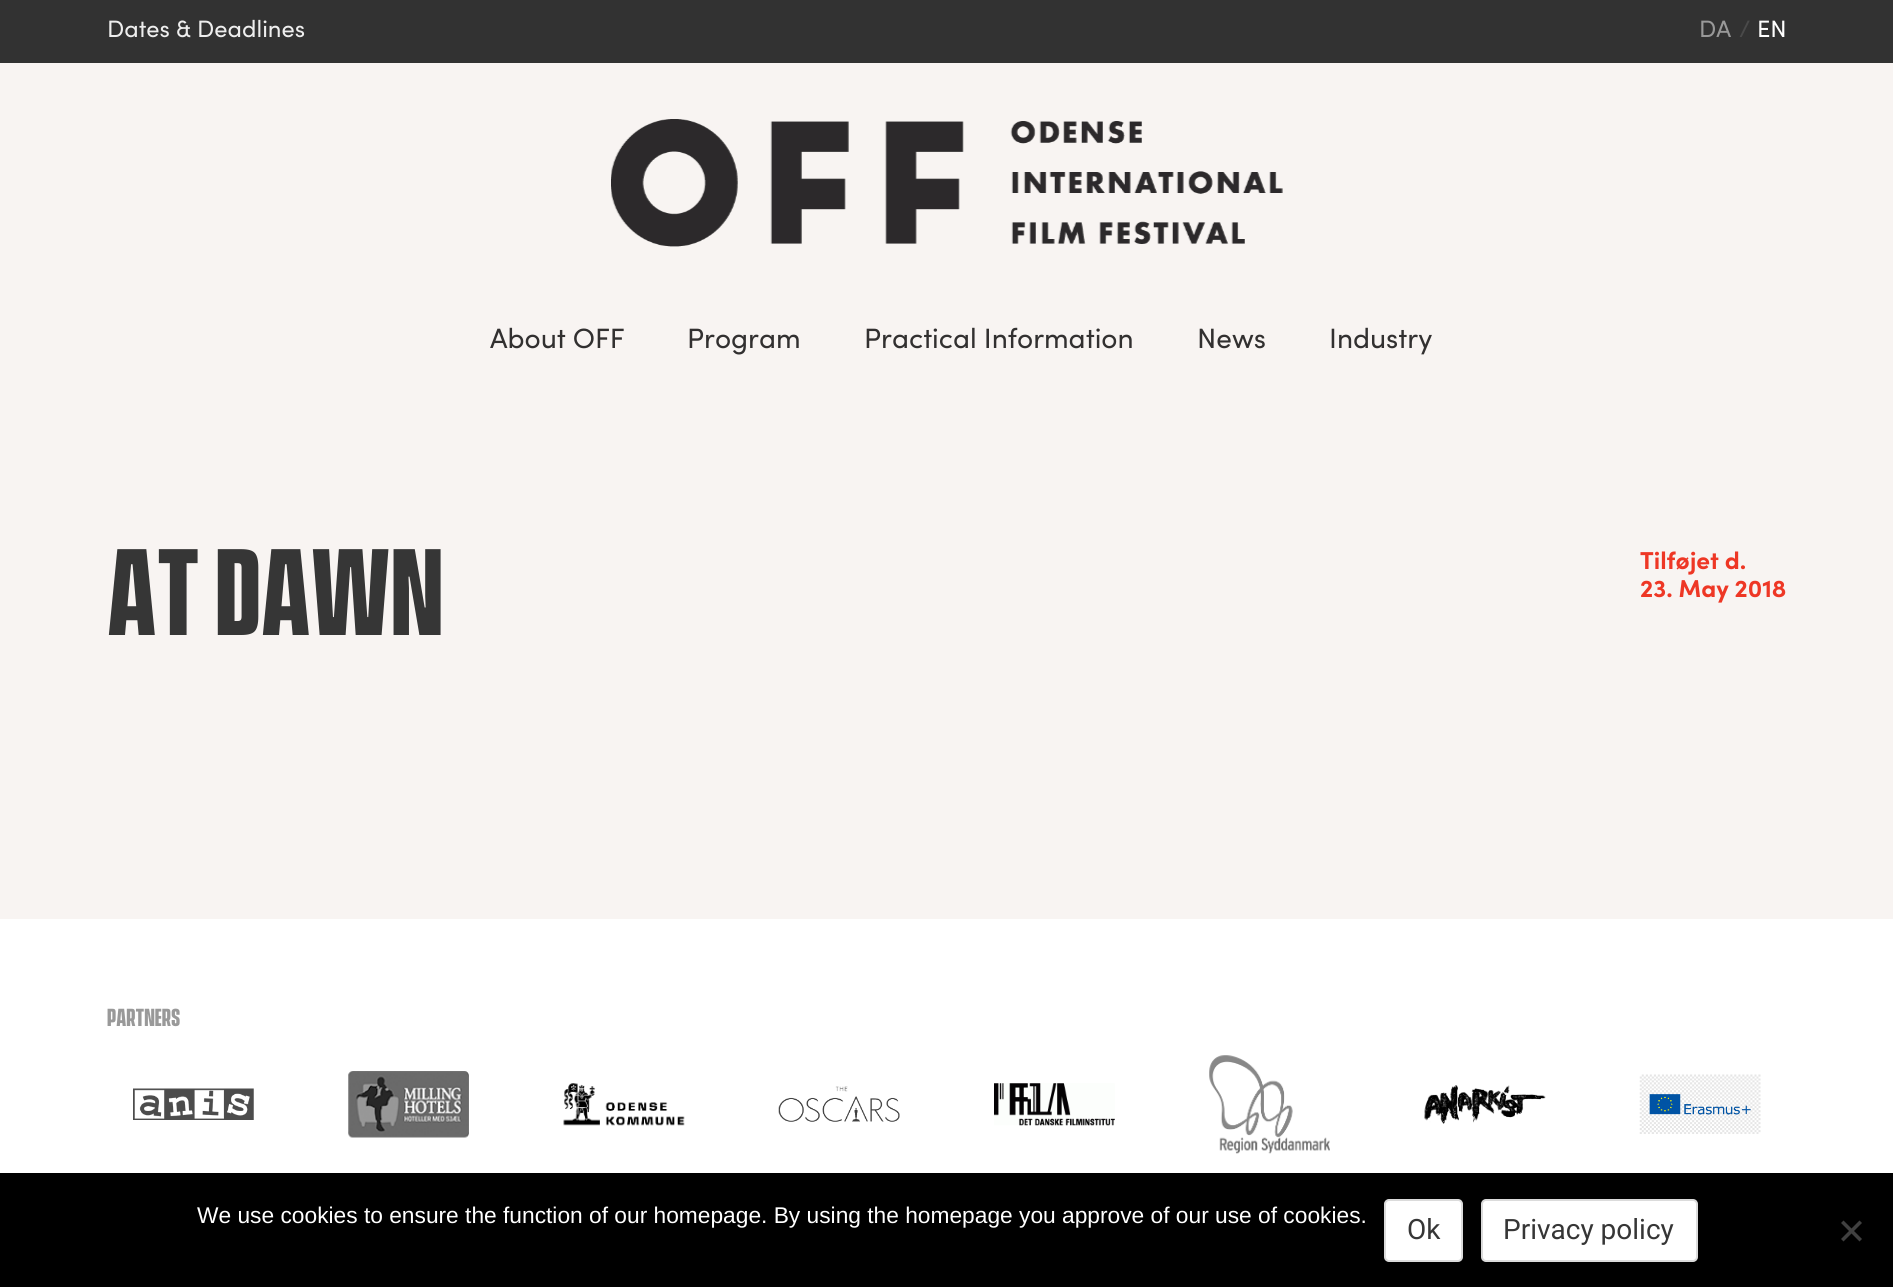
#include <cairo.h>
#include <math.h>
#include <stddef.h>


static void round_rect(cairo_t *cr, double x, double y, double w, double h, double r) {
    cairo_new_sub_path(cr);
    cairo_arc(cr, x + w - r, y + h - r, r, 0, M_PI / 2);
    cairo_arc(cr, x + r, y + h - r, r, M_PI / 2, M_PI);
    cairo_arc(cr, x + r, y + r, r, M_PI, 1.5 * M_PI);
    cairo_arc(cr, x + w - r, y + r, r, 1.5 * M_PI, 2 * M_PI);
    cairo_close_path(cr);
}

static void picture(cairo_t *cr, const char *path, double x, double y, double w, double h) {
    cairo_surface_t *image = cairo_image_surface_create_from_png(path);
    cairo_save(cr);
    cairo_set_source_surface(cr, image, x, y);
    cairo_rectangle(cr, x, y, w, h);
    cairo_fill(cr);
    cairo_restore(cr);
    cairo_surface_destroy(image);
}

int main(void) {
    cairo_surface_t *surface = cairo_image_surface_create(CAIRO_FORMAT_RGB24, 1893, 1287);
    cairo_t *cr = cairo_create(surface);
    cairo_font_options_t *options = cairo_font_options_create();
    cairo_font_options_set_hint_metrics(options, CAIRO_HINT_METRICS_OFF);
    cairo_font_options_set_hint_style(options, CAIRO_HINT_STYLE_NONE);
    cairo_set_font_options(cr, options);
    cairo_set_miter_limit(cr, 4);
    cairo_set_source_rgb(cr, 1, 1, 1);
    cairo_paint(cr);
    cairo_set_source_rgb(cr, 0.196, 0.196, 0.196);
    cairo_rectangle(cr, 0, 0, 1893, 63);
    cairo_fill(cr);
    cairo_select_font_face(cr, "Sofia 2", CAIRO_FONT_SLANT_NORMAL, CAIRO_FONT_WEIGHT_NORMAL);
    cairo_set_font_size(cr, 23.75);
    cairo_set_source_rgb(cr, 0.933, 0.933, 0.933);
    cairo_move_to(cr, 107, 37);
    cairo_show_text(cr, "Dates & Deadlines");
    cairo_set_source_rgb(cr, 0.6, 0.6, 0.6);
    cairo_move_to(cr, 1699, 37);
    cairo_show_text(cr, "DA");
    cairo_set_source_rgb(cr, 0.29, 0.29, 0.29);
    cairo_move_to(cr, 1739, 37);
    cairo_show_text(cr, "/");
    cairo_set_source_rgb(cr, 1, 1, 1);
    cairo_move_to(cr, 1757, 37);
    cairo_show_text(cr, "EN");
    cairo_set_source_rgb(cr, 0.969, 0.957, 0.949);
    cairo_rectangle(cr, 0, 63, 1893, 856);
    cairo_fill(cr);
    picture(cr, "img1.png", 611, 119, 672, 128);
    cairo_set_font_size(cr, 28);
    cairo_set_source_rgb(cr, 0.196, 0.188, 0.188);
    cairo_move_to(cr, 490, 348);
    cairo_show_text(cr, "About OFF");
    cairo_move_to(cr, 687, 348);
    cairo_show_text(cr, "Program");
    cairo_move_to(cr, 864, 348);
    cairo_show_text(cr, "Practical Information");
    cairo_move_to(cr, 1197, 348);
    cairo_show_text(cr, "News");
    cairo_move_to(cr, 1329, 348);
    cairo_show_text(cr, "Industry");
    cairo_select_font_face(cr, "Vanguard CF", CAIRO_FONT_SLANT_NORMAL, CAIRO_FONT_WEIGHT_BOLD);
    cairo_set_font_size(cr, 112);
    cairo_set_source_rgb(cr, 0.212, 0.212, 0.212);
    cairo_move_to(cr, 107, 635);
    cairo_show_text(cr, "At Dawn");
    cairo_select_font_face(cr, "Sofia", CAIRO_FONT_SLANT_NORMAL, CAIRO_FONT_WEIGHT_NORMAL);
    cairo_set_font_size(cr, 24.5);
    cairo_set_source_rgb(cr, 0.933, 0.216, 0.145);
    cairo_move_to(cr, 1640, 569);
    cairo_show_text(cr, "Tilføjet d.");
    cairo_move_to(cr, 1640, 597);
    cairo_show_text(cr, "23. May 2018");
    cairo_select_font_face(cr, "Vanguard CF", CAIRO_FONT_SLANT_NORMAL, CAIRO_FONT_WEIGHT_BOLD);
    cairo_set_font_size(cr, 22.5);
    cairo_set_source_rgb(cr, 0.6, 0.6, 0.6);
    cairo_move_to(cr, 107, 1026);
    cairo_show_text(cr, "PARTNERS");
    picture(cr, "img2.png", 133, 1088, 121, 32);
    picture(cr, "img3.png", 348, 1071, 121, 67);
    picture(cr, "img4.png", 563, 1083, 122, 43);
    picture(cr, "img5.png", 778, 1086, 122, 36);
    picture(cr, "img6.png", 994, 1083, 121, 43);
    picture(cr, "img7.png", 1209, 1055, 121, 99);
    picture(cr, "img8.png", 1424, 1085, 122, 39);
    picture(cr, "img9.png", 1639, 1074, 122, 60);
    cairo_set_source_rgb(cr, 0, 0, 0);
    cairo_rectangle(cr, 0, 1173, 1893, 114);
    cairo_fill(cr);
    cairo_select_font_face(cr, "Liberation Sans", CAIRO_FONT_SLANT_NORMAL, CAIRO_FONT_WEIGHT_NORMAL);
    cairo_set_font_size(cr, 22.75);
    cairo_set_source_rgb(cr, 1, 1, 1);
    cairo_move_to(cr, 197, 1223);
    cairo_show_text(cr, "We use cookies to ensure the function of our homepage. By using the homepage you approve of our use of cookies.");
    round_rect(cr, 1385, 1200, 77, 61, 4);
    cairo_fill_preserve(cr);
    cairo_set_source_rgb(cr, 0.859, 0.859, 0.859);
    cairo_stroke(cr);
    cairo_select_font_face(cr, "Roboto", CAIRO_FONT_SLANT_NORMAL, CAIRO_FONT_WEIGHT_NORMAL);
    cairo_set_font_size(cr, 28);
    cairo_set_source_rgb(cr, 0.212, 0.212, 0.212);
    cairo_move_to(cr, 1407, 1239);
    cairo_show_text(cr, "Ok");
    cairo_set_source_rgb(cr, 1, 1, 1);
    round_rect(cr, 1482, 1200, 215, 61, 4);
    cairo_fill_preserve(cr);
    cairo_set_source_rgb(cr, 0.859, 0.859, 0.859);
    cairo_stroke(cr);
    cairo_set_source_rgb(cr, 0.212, 0.212, 0.212);
    cairo_move_to(cr, 1503, 1239);
    cairo_show_text(cr, "Privacy policy");
    cairo_set_source_rgb(cr, 0.251, 0.251, 0.251);
    cairo_new_path(cr);
    cairo_move_to(cr, 1859.5, 1220.5);
    cairo_line_to(cr, 1862, 1223);
    cairo_line_to(cr, 1843.5, 1241.5);
    cairo_line_to(cr, 1841, 1239);
    cairo_close_path(cr);
    cairo_fill(cr);
    cairo_new_path(cr);
    cairo_move_to(cr, 1841, 1223);
    cairo_line_to(cr, 1843.5, 1220.5);
    cairo_line_to(cr, 1862, 1239);
    cairo_line_to(cr, 1859.5, 1241.5);
    cairo_close_path(cr);
    cairo_fill(cr);
    cairo_surface_write_to_png(surface, "page.png");
    cairo_font_options_destroy(options);
    cairo_destroy(cr);
    cairo_surface_destroy(surface);
    return 0;
}
